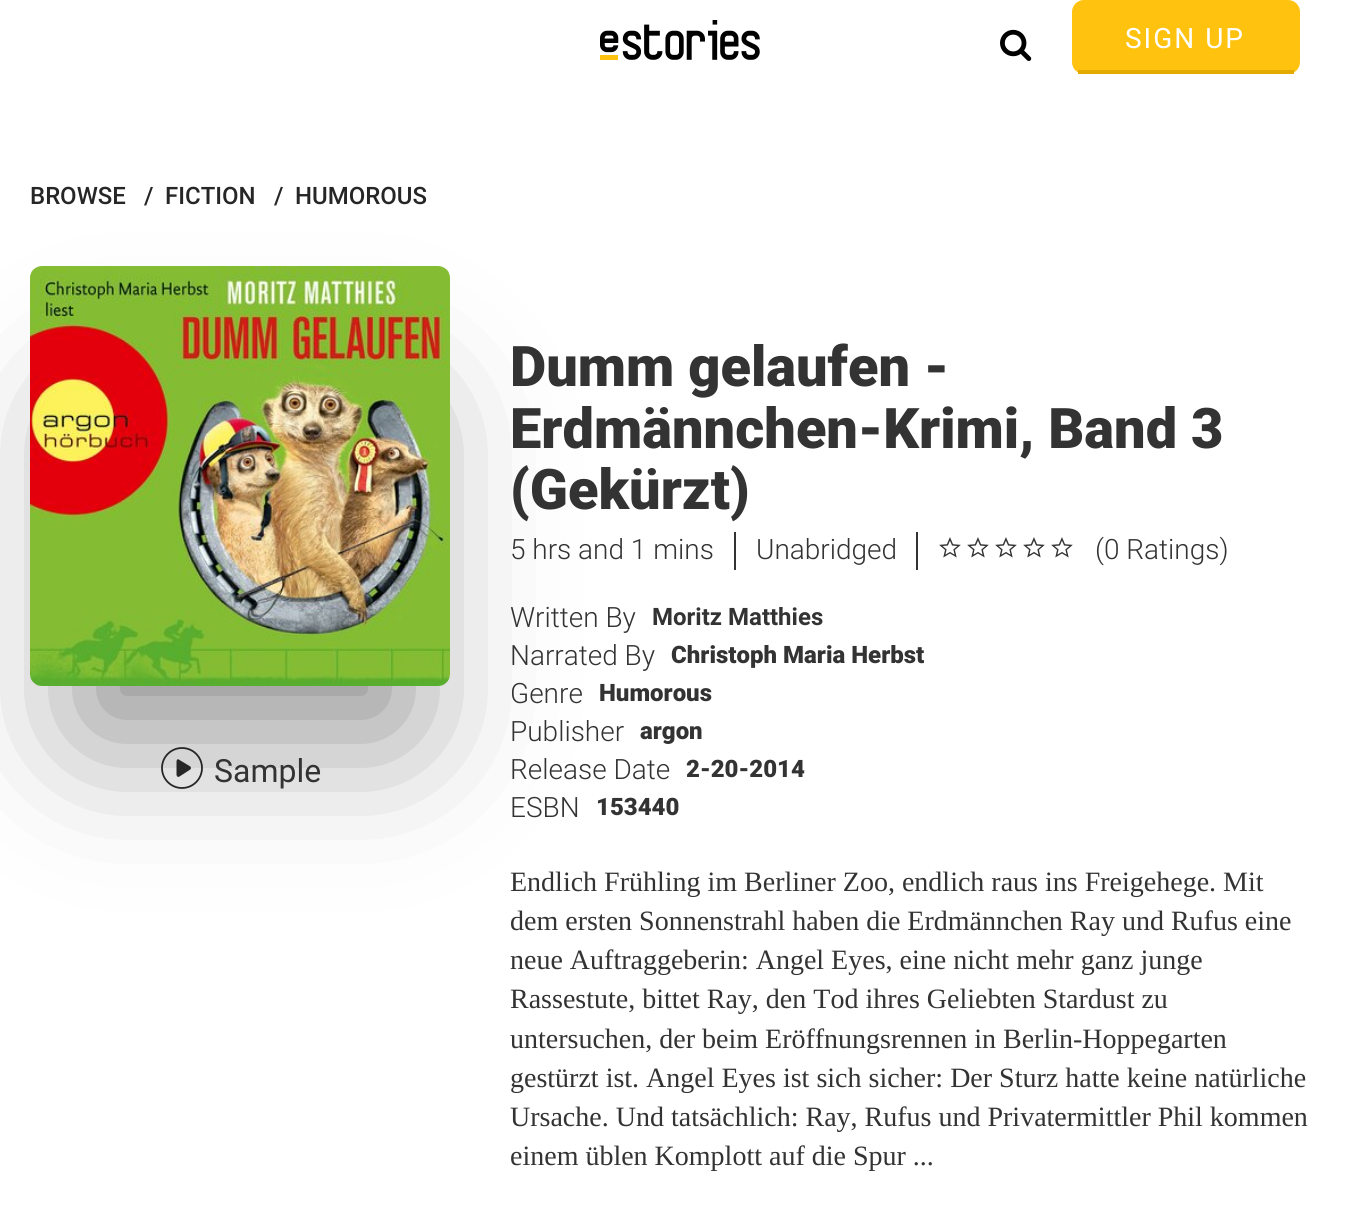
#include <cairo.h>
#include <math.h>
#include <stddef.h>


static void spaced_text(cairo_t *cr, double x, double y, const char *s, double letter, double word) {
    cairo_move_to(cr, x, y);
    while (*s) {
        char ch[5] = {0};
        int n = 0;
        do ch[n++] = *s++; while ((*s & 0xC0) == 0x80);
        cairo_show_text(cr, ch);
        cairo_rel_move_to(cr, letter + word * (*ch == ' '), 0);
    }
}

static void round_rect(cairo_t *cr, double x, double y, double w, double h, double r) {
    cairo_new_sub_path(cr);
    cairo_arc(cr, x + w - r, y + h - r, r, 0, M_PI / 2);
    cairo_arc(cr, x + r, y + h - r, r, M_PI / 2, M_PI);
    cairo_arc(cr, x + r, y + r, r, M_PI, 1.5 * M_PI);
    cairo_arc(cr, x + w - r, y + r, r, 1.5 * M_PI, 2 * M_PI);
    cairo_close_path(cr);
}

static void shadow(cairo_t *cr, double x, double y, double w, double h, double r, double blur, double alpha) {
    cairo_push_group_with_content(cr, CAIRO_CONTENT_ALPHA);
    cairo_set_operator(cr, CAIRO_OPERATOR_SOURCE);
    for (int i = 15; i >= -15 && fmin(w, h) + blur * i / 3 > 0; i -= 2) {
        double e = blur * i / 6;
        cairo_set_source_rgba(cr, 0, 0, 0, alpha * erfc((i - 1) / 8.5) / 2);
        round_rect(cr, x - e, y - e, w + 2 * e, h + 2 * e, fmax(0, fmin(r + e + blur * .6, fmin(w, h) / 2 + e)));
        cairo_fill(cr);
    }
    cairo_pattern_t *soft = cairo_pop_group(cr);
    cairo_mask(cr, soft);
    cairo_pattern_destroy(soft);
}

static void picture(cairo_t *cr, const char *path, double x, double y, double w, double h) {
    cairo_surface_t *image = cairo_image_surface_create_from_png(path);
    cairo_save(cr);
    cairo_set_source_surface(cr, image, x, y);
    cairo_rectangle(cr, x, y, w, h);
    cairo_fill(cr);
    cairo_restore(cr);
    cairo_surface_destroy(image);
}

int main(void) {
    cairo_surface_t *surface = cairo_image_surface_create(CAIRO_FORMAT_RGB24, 1360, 1225);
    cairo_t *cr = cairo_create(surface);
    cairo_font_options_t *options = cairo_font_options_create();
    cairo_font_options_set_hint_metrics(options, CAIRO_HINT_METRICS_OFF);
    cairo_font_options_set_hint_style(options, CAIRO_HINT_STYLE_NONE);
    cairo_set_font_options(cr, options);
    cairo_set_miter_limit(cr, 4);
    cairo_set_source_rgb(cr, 1, 1, 1);
    cairo_paint(cr);
    picture(cr, "img1.png", 600, 20, 160, 40);
    picture(cr, "img2.png", 1000, 29, 32, 32);
    cairo_set_source_rgb(cr, 1, 0.761, 0.055);
    round_rect(cr, 1072, 0, 228, 74, 12);
    cairo_fill(cr);
    cairo_set_source_rgb(cr, 0.89, 0.671, 0);
    cairo_rectangle(cr, 1078, 70, 216, 4);
    cairo_fill(cr);
    cairo_select_font_face(cr, "Roboto", CAIRO_FONT_SLANT_NORMAL, CAIRO_FONT_WEIGHT_NORMAL);
    cairo_set_font_size(cr, 28);
    cairo_set_source_rgb(cr, 1, 1, 1);
    spaced_text(cr, 1125, 48, "SIGN UP", 2, 0);
    cairo_select_font_face(cr, "Roboto Medium", CAIRO_FONT_SLANT_NORMAL, CAIRO_FONT_WEIGHT_NORMAL);
    cairo_set_font_size(cr, 24);
    cairo_set_source_rgb(cr, 0.149, 0.149, 0.149);
    cairo_move_to(cr, 30, 204);
    cairo_show_text(cr, "BROWSE");
    cairo_move_to(cr, 144, 204);
    cairo_show_text(cr, "/");
    cairo_move_to(cr, 165, 204);
    cairo_show_text(cr, "FICTION");
    cairo_move_to(cr, 274, 204);
    cairo_show_text(cr, "/");
    cairo_move_to(cr, 295, 204);
    cairo_show_text(cr, "HUMOROUS");
    cairo_set_source_rgb(cr, 0, 0, 0);
    shadow(cr, 84, 412, 320, 320, 0, 72, 0.45);
    picture(cr, "img3.png", 30, 266, 420, 420);
    cairo_arc(cr, 182, 768, 20, 0, 2 * M_PI);
    cairo_set_source_rgb(cr, 0.149, 0.149, 0.149);
    cairo_set_line_width(cr, 1.8);
    cairo_stroke(cr);
    cairo_set_fill_rule(cr, CAIRO_FILL_RULE_EVEN_ODD);
    cairo_new_path(cr);
    cairo_move_to(cr, 179.5, 776.5);
    cairo_curve_to(cr, 178, 777.5, 176.5, 776.5, 176.5, 774.5);
    cairo_line_to(cr, 176.5, 761.5);
    cairo_curve_to(cr, 176.5, 759.5, 178, 758.5, 179.5, 760);
    cairo_line_to(cr, 189.5, 766);
    cairo_curve_to(cr, 191.5, 767, 191.5, 769, 189.5, 770);
    cairo_close_path(cr);
    cairo_fill(cr);
    cairo_select_font_face(cr, "Roboto", CAIRO_FONT_SLANT_NORMAL, CAIRO_FONT_WEIGHT_NORMAL);
    cairo_set_font_size(cr, 32);
    cairo_set_source_rgb(cr, 0.2, 0.2, 0.2);
    cairo_move_to(cr, 214, 782);
    cairo_show_text(cr, "Sample");
    cairo_select_font_face(cr, "Roboto Black", CAIRO_FONT_SLANT_NORMAL, CAIRO_FONT_WEIGHT_NORMAL);
    cairo_set_font_size(cr, 56);
    cairo_move_to(cr, 510, 386);
    cairo_show_text(cr, "Dumm gelaufen -");
    cairo_move_to(cr, 510, 448);
    cairo_show_text(cr, "Erdmännchen-Krimi, Band 3");
    cairo_move_to(cr, 510, 509);
    cairo_show_text(cr, "(Gekürzt)");
    cairo_select_font_face(cr, "Roboto Light", CAIRO_FONT_SLANT_NORMAL, CAIRO_FONT_WEIGHT_NORMAL);
    cairo_set_font_size(cr, 28);
    cairo_move_to(cr, 510, 559);
    cairo_show_text(cr, "5 hrs and 1 mins");
    cairo_rectangle(cr, 734, 532, 2, 38);
    cairo_fill(cr);
    cairo_move_to(cr, 756, 559);
    cairo_show_text(cr, "Unabridged");
    cairo_rectangle(cr, 916, 532, 2, 38);
    cairo_fill(cr);
    picture(cr, "img4.png", 939, 537, 22, 21);
    picture(cr, "img4.png", 967, 537, 22, 21);
    picture(cr, "img4.png", 995, 537, 22, 21);
    picture(cr, "img4.png", 1023, 537, 22, 21);
    picture(cr, "img4.png", 1051, 537, 22, 21);
    cairo_move_to(cr, 1095, 559);
    cairo_show_text(cr, "(0 Ratings)");
    cairo_move_to(cr, 510, 627);
    cairo_show_text(cr, "Written By");
    cairo_select_font_face(cr, "Roboto", CAIRO_FONT_SLANT_NORMAL, CAIRO_FONT_WEIGHT_BOLD);
    cairo_set_font_size(cr, 24);
    cairo_move_to(cr, 652, 625);
    cairo_show_text(cr, "Moritz Matthies");
    cairo_select_font_face(cr, "Roboto Light", CAIRO_FONT_SLANT_NORMAL, CAIRO_FONT_WEIGHT_NORMAL);
    cairo_set_font_size(cr, 28);
    cairo_move_to(cr, 510, 665);
    cairo_show_text(cr, "Narrated By");
    cairo_select_font_face(cr, "Roboto Black", CAIRO_FONT_SLANT_NORMAL, CAIRO_FONT_WEIGHT_NORMAL);
    cairo_set_font_size(cr, 24);
    cairo_move_to(cr, 671, 663);
    cairo_show_text(cr, "Christoph Maria Herbst");
    cairo_select_font_face(cr, "Roboto Light", CAIRO_FONT_SLANT_NORMAL, CAIRO_FONT_WEIGHT_NORMAL);
    cairo_set_font_size(cr, 28);
    cairo_move_to(cr, 510, 703);
    cairo_show_text(cr, "Genre");
    cairo_select_font_face(cr, "Roboto Black", CAIRO_FONT_SLANT_NORMAL, CAIRO_FONT_WEIGHT_NORMAL);
    cairo_set_font_size(cr, 24);
    cairo_move_to(cr, 599, 701);
    cairo_show_text(cr, "Humorous");
    cairo_select_font_face(cr, "Roboto Light", CAIRO_FONT_SLANT_NORMAL, CAIRO_FONT_WEIGHT_NORMAL);
    cairo_set_font_size(cr, 28);
    cairo_move_to(cr, 510, 741);
    cairo_show_text(cr, "Publisher");
    cairo_select_font_face(cr, "Roboto Black", CAIRO_FONT_SLANT_NORMAL, CAIRO_FONT_WEIGHT_NORMAL);
    cairo_set_font_size(cr, 24);
    cairo_move_to(cr, 640, 739);
    cairo_show_text(cr, "argon");
    cairo_select_font_face(cr, "Roboto Light", CAIRO_FONT_SLANT_NORMAL, CAIRO_FONT_WEIGHT_NORMAL);
    cairo_set_font_size(cr, 28);
    cairo_move_to(cr, 510, 779);
    cairo_show_text(cr, "Release Date");
    cairo_select_font_face(cr, "Roboto Black", CAIRO_FONT_SLANT_NORMAL, CAIRO_FONT_WEIGHT_NORMAL);
    cairo_set_font_size(cr, 24);
    cairo_move_to(cr, 686, 777);
    cairo_show_text(cr, "2-20-2014");
    cairo_select_font_face(cr, "Roboto Light", CAIRO_FONT_SLANT_NORMAL, CAIRO_FONT_WEIGHT_NORMAL);
    cairo_set_font_size(cr, 28);
    cairo_move_to(cr, 510, 817);
    cairo_show_text(cr, "ESBN");
    cairo_select_font_face(cr, "Roboto Black", CAIRO_FONT_SLANT_NORMAL, CAIRO_FONT_WEIGHT_NORMAL);
    cairo_set_font_size(cr, 24);
    cairo_move_to(cr, 596, 815);
    cairo_show_text(cr, "153440");
    cairo_select_font_face(cr, "Liberation Serif", CAIRO_FONT_SLANT_NORMAL, CAIRO_FONT_WEIGHT_NORMAL);
    cairo_set_font_size(cr, 28);
    cairo_move_to(cr, 510, 891);
    cairo_show_text(cr, "Endlich Frühling im Berliner Zoo, endlich raus ins Freigehege. Mit");
    cairo_move_to(cr, 510, 930);
    cairo_show_text(cr, "dem ersten Sonnenstrahl haben die Erdmännchen Ray und Rufus eine");
    cairo_move_to(cr, 510, 969);
    cairo_show_text(cr, "neue Auftraggeberin: Angel Eyes, eine nicht mehr ganz junge");
    cairo_move_to(cr, 510, 1008);
    cairo_show_text(cr, "Rassestute, bittet Ray, den Tod ihres Geliebten Stardust zu");
    cairo_move_to(cr, 510, 1048);
    cairo_show_text(cr, "untersuchen, der beim Eröffnungsrennen in Berlin-Hoppegarten");
    cairo_move_to(cr, 510, 1087);
    cairo_show_text(cr, "gestürzt ist. Angel Eyes ist sich sicher: Der Sturz hatte keine natürliche");
    cairo_move_to(cr, 510, 1126);
    cairo_show_text(cr, "Ursache. Und tatsächlich: Ray, Rufus und Privatermittler Phil kommen");
    cairo_move_to(cr, 510, 1165);
    cairo_show_text(cr, "einem üblen Komplott auf die Spur ...");
    cairo_surface_write_to_png(surface, "page.png");
    cairo_font_options_destroy(options);
    cairo_destroy(cr);
    cairo_surface_destroy(surface);
    return 0;
}
